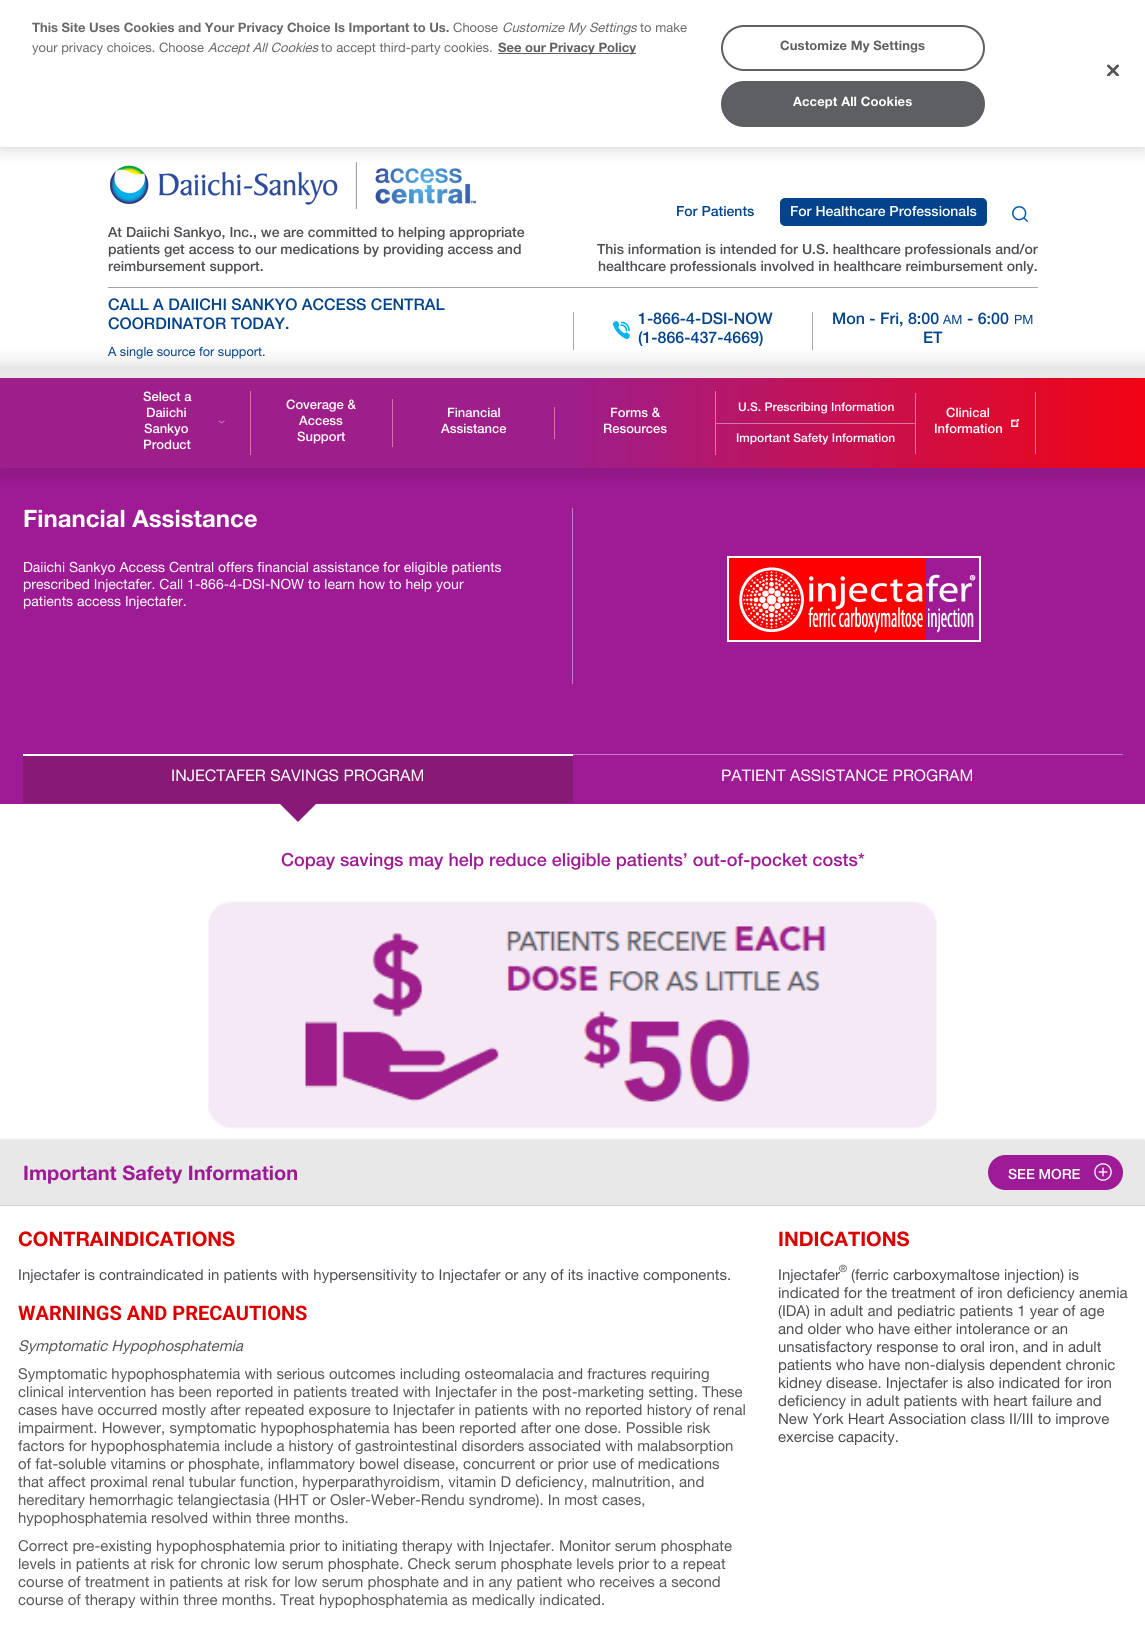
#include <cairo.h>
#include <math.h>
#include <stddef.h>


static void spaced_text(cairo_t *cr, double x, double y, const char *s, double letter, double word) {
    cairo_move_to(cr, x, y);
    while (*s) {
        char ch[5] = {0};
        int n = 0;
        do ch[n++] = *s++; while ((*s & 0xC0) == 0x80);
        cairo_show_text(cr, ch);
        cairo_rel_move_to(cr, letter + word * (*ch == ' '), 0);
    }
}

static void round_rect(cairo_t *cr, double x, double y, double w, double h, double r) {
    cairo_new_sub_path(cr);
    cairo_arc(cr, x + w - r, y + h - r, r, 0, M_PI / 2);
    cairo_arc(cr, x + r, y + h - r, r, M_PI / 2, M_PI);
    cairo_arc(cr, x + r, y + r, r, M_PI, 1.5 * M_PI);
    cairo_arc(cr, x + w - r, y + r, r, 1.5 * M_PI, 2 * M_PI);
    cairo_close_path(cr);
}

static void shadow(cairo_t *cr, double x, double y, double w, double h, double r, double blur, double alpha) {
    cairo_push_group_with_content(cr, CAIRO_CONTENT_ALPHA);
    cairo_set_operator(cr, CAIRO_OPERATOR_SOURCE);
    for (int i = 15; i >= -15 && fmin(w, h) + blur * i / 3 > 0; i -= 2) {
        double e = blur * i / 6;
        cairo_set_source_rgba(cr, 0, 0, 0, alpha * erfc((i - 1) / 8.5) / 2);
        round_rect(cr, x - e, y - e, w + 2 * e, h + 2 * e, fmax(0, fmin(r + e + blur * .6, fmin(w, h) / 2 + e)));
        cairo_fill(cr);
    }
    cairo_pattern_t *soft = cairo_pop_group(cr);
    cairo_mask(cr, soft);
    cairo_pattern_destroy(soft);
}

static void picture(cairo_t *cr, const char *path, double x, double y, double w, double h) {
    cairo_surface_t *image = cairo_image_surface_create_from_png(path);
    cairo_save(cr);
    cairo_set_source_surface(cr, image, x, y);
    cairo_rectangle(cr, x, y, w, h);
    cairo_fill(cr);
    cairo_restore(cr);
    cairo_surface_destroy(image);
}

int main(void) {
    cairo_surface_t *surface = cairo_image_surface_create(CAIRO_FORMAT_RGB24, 1145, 1629);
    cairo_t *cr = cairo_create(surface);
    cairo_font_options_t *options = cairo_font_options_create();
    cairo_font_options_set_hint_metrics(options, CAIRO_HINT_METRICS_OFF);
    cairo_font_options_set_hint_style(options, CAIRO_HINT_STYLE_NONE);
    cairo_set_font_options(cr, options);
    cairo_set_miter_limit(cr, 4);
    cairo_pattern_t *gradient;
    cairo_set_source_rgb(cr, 1, 1, 1);
    cairo_paint(cr);
    picture(cr, "img2.png", 110, 162, 366, 47);
    cairo_set_source_rgb(cr, 0, 0, 0);
    shadow(cr, 0, 0, 1145, 147, 0, 9, 0.2);
    cairo_set_source_rgb(cr, 1, 1, 1);
    cairo_rectangle(cr, 0, 0, 1145, 147);
    cairo_fill(cr);
    cairo_select_font_face(cr, "Helvetica Neue", CAIRO_FONT_SLANT_NORMAL, CAIRO_FONT_WEIGHT_BOLD);
    cairo_set_font_size(cr, 13);
    cairo_set_source_rgb(cr, 0.412, 0.412, 0.412);
    cairo_move_to(cr, 32, 32);
    cairo_show_text(cr, "This Site Uses Cookies and Your Privacy Choice Is Important to Us.");
    cairo_select_font_face(cr, "Helvetica Neue", CAIRO_FONT_SLANT_NORMAL, CAIRO_FONT_WEIGHT_NORMAL);
    cairo_move_to(cr, 453, 32);
    cairo_show_text(cr, "Choose");
    cairo_select_font_face(cr, "Helvetica Neue", CAIRO_FONT_SLANT_ITALIC, CAIRO_FONT_WEIGHT_NORMAL);
    cairo_move_to(cr, 502, 32);
    cairo_show_text(cr, "Customize My Settings");
    cairo_select_font_face(cr, "Helvetica Neue", CAIRO_FONT_SLANT_NORMAL, CAIRO_FONT_WEIGHT_NORMAL);
    cairo_move_to(cr, 640, 32);
    cairo_show_text(cr, "to make");
    cairo_move_to(cr, 32, 52);
    cairo_show_text(cr, "your privacy choices. Choose");
    cairo_select_font_face(cr, "Helvetica Neue", CAIRO_FONT_SLANT_ITALIC, CAIRO_FONT_WEIGHT_NORMAL);
    cairo_move_to(cr, 208, 52);
    cairo_show_text(cr, "Accept All Cookies");
    cairo_select_font_face(cr, "Helvetica Neue", CAIRO_FONT_SLANT_NORMAL, CAIRO_FONT_WEIGHT_NORMAL);
    cairo_move_to(cr, 321, 52);
    cairo_show_text(cr, "to accept third-party cookies.");
    cairo_set_source_rgb(cr, 0.369, 0.373, 0.384);
    cairo_rectangle(cr, 498, 53, 138, 1);
    cairo_fill(cr);
    cairo_select_font_face(cr, "Helvetica Neue", CAIRO_FONT_SLANT_NORMAL, CAIRO_FONT_WEIGHT_BOLD);
    cairo_move_to(cr, 498, 52);
    cairo_show_text(cr, "See our Privacy Policy");
    round_rect(cr, 722, 26, 262, 44, 22);
    cairo_stroke(cr);
    spaced_text(cr, 780, 50, "Customize My Settings", 0.1, 0);
    round_rect(cr, 722, 82, 262, 44, 22);
    cairo_fill_preserve(cr);
    cairo_stroke(cr);
    cairo_set_source_rgb(cr, 1, 1, 1);
    spaced_text(cr, 793, 106, "Accept All Cookies", 0.1, 0);
    picture(cr, "img1.png", 1107, 64, 12, 12);
    cairo_set_source_rgb(cr, 0.651, 0.651, 0.651);
    cairo_rectangle(cr, 108, 287, 930, 1);
    cairo_fill(cr);
    cairo_select_font_face(cr, "Helvetica Neue Medium", CAIRO_FONT_SLANT_NORMAL, CAIRO_FONT_WEIGHT_NORMAL);
    cairo_set_font_size(cr, 14);
    cairo_set_source_rgb(cr, 0.302, 0.31, 0.325);
    cairo_move_to(cr, 108, 237);
    cairo_show_text(cr, "At Daiichi Sankyo, Inc., we are committed to helping appropriate");
    cairo_move_to(cr, 108, 254);
    cairo_show_text(cr, "patients get access to our medications by providing access and");
    cairo_move_to(cr, 108, 271);
    cairo_show_text(cr, "reimbursement support.");
    cairo_set_source_rgb(cr, 0.008, 0.263, 0.545);
    cairo_move_to(cr, 676, 216);
    cairo_show_text(cr, "For Patients");
    round_rect(cr, 780, 198, 207, 28, 5);
    cairo_fill(cr);
    cairo_set_source_rgb(cr, 1, 1, 1);
    cairo_move_to(cr, 790, 216);
    cairo_show_text(cr, "For Healthcare Professionals");
    picture(cr, "img3.png", 1012, 206, 16, 16);
    cairo_set_source_rgb(cr, 0.302, 0.31, 0.325);
    cairo_move_to(cr, 597, 254);
    cairo_show_text(cr, "This information is intended for U.S. healthcare professionals and/or");
    cairo_move_to(cr, 598, 271);
    cairo_show_text(cr, "healthcare professionals involved in healthcare reimbursement only.");
    cairo_set_font_size(cr, 16);
    cairo_set_source_rgb(cr, 0.008, 0.263, 0.545);
    cairo_move_to(cr, 108, 310);
    cairo_show_text(cr, "CALL A DAIICHI SANKYO ACCESS CENTRAL");
    cairo_move_to(cr, 108, 329);
    cairo_show_text(cr, "COORDINATOR TODAY.");
    cairo_select_font_face(cr, "Helvetica Neue", CAIRO_FONT_SLANT_NORMAL, CAIRO_FONT_WEIGHT_NORMAL);
    cairo_set_font_size(cr, 12.75);
    cairo_move_to(cr, 108, 356);
    cairo_show_text(cr, "A single source for support.");
    cairo_set_source_rgb(cr, 0.651, 0.651, 0.651);
    cairo_rectangle(cr, 812, 312, 1, 38);
    cairo_fill(cr);
    cairo_rectangle(cr, 573, 312, 1, 38);
    cairo_fill(cr);
    picture(cr, "img4.png", 613, 321, 17, 18);
    cairo_select_font_face(cr, "Helvetica Neue Medium", CAIRO_FONT_SLANT_NORMAL, CAIRO_FONT_WEIGHT_NORMAL);
    cairo_set_font_size(cr, 16);
    cairo_set_source_rgb(cr, 0.008, 0.263, 0.545);
    cairo_move_to(cr, 638, 324);
    cairo_show_text(cr, "1-866-4-DSI-NOW");
    cairo_move_to(cr, 638, 343);
    cairo_show_text(cr, "(1-866-437-4669)");
    cairo_move_to(cr, 832, 324);
    cairo_show_text(cr, "Mon - Fri, 8:00");
    cairo_select_font_face(cr, "Helvetica Neue", CAIRO_FONT_SLANT_NORMAL, CAIRO_FONT_WEIGHT_NORMAL);
    cairo_set_font_size(cr, 12.75);
    cairo_move_to(cr, 943, 324);
    cairo_show_text(cr, "AM");
    cairo_select_font_face(cr, "Helvetica Neue Medium", CAIRO_FONT_SLANT_NORMAL, CAIRO_FONT_WEIGHT_NORMAL);
    cairo_set_font_size(cr, 16);
    cairo_move_to(cr, 967, 324);
    cairo_show_text(cr, "- 6:00");
    cairo_select_font_face(cr, "Helvetica Neue", CAIRO_FONT_SLANT_NORMAL, CAIRO_FONT_WEIGHT_NORMAL);
    cairo_set_font_size(cr, 12.75);
    cairo_move_to(cr, 1014, 324);
    cairo_show_text(cr, "PM");
    cairo_select_font_face(cr, "Helvetica Neue Medium", CAIRO_FONT_SLANT_NORMAL, CAIRO_FONT_WEIGHT_NORMAL);
    cairo_set_font_size(cr, 16);
    cairo_move_to(cr, 923, 343);
    cairo_show_text(cr, "ET");
    cairo_set_source_rgb(cr, 0, 0, 0);
    shadow(cr, -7, 361, 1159, 14, 0, 7.5, 0.1);
    cairo_set_source_rgb(cr, 0.624, 0.106, 0.588);
    cairo_rectangle(cr, 0, 468, 1145, 336);
    cairo_fill(cr);
    cairo_set_source_rgb(cr, 0, 0, 0);
    shadow(cr, -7, 376, 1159, 104, 0, 7.5, 0.1);
    gradient = cairo_pattern_create_linear(0, 423, 1145, 423);
    cairo_pattern_add_color_stop_rgba(gradient, 0, 0.62, 0.118, 0.541, 1);
    cairo_pattern_add_color_stop_rgba(gradient, 0.5, 0.62, 0.118, 0.541, 1);
    cairo_pattern_add_color_stop_rgba(gradient, 1, 0.945, 0.016, 0.078, 1);
    cairo_set_source(cr, gradient);
    cairo_pattern_destroy(gradient);
    cairo_rectangle(cr, 0, 378, 1145, 90);
    cairo_fill(cr);
    cairo_set_source_rgb(cr, 0.835, 0.463, 0.647);
    cairo_rectangle(cr, 250, 391, 1, 64);
    cairo_fill(cr);
    cairo_set_font_size(cr, 13);
    cairo_set_source_rgb(cr, 1, 1, 1);
    cairo_move_to(cr, 143, 401);
    cairo_show_text(cr, "Select a");
    cairo_move_to(cr, 146, 417);
    cairo_show_text(cr, "Daiichi");
    picture(cr, "img5.png", 218, 420, 7, 4);
    cairo_move_to(cr, 144, 433);
    cairo_show_text(cr, "Sankyo");
    cairo_move_to(cr, 143, 449);
    cairo_show_text(cr, "Product");
    cairo_set_source_rgb(cr, 0.835, 0.463, 0.647);
    cairo_rectangle(cr, 392, 399, 1, 48);
    cairo_fill(cr);
    cairo_set_source_rgb(cr, 1, 1, 1);
    cairo_move_to(cr, 286, 409);
    cairo_show_text(cr, "Coverage &");
    cairo_move_to(cr, 299, 425);
    cairo_show_text(cr, "Access");
    cairo_move_to(cr, 297, 441);
    cairo_show_text(cr, "Support");
    cairo_set_source_rgb(cr, 0.835, 0.463, 0.647);
    cairo_rectangle(cr, 554, 407, 1, 32);
    cairo_fill(cr);
    cairo_set_source_rgb(cr, 1, 1, 1);
    cairo_move_to(cr, 447, 417);
    cairo_show_text(cr, "Financial");
    cairo_move_to(cr, 441, 433);
    cairo_show_text(cr, "Assistance");
    cairo_set_source_rgb(cr, 0.835, 0.463, 0.647);
    cairo_rectangle(cr, 715, 391, 1, 64);
    cairo_fill(cr);
    cairo_set_source_rgb(cr, 1, 1, 1);
    cairo_move_to(cr, 610, 417);
    cairo_show_text(cr, "Forms &");
    cairo_move_to(cr, 603, 433);
    cairo_show_text(cr, "Resources");
    cairo_set_source_rgb(cr, 0.835, 0.463, 0.647);
    cairo_rectangle(cr, 915, 393, 1, 61);
    cairo_fill(cr);
    cairo_rectangle(cr, 716, 423, 200, 1);
    cairo_fill(cr);
    cairo_set_font_size(cr, 12);
    cairo_set_source_rgb(cr, 1, 1, 1);
    cairo_move_to(cr, 738, 411);
    cairo_show_text(cr, "U.S. Prescribing Information");
    cairo_move_to(cr, 736, 442);
    cairo_show_text(cr, "Important Safety Information");
    cairo_set_source_rgb(cr, 0.835, 0.463, 0.647);
    cairo_rectangle(cr, 1035, 392, 1, 62);
    cairo_fill(cr);
    cairo_set_font_size(cr, 13);
    cairo_set_source_rgb(cr, 1, 1, 1);
    cairo_move_to(cr, 946, 417);
    cairo_show_text(cr, "Clinical");
    cairo_move_to(cr, 934, 433);
    cairo_show_text(cr, "Information");
    picture(cr, "img6.png", 1011, 419, 8, 8);
    cairo_set_source_rgb(cr, 0.78, 0.475, 0.757);
    cairo_rectangle(cr, 572, 508, 1, 176);
    cairo_fill(cr);
    cairo_select_font_face(cr, "Helvetica Neue", CAIRO_FONT_SLANT_NORMAL, CAIRO_FONT_WEIGHT_BOLD);
    cairo_set_font_size(cr, 24);
    cairo_set_source_rgb(cr, 1, 1, 1);
    cairo_move_to(cr, 23, 527);
    cairo_show_text(cr, "Financial Assistance");
    cairo_select_font_face(cr, "Helvetica Neue", CAIRO_FONT_SLANT_NORMAL, CAIRO_FONT_WEIGHT_NORMAL);
    cairo_set_font_size(cr, 14);
    cairo_move_to(cr, 23, 572);
    cairo_show_text(cr, "Daiichi Sankyo Access Central offers financial assistance for eligible patients");
    cairo_move_to(cr, 23, 589);
    cairo_show_text(cr, "prescribed Injectafer. Call 1-866-4-DSI-NOW to learn how to help your");
    cairo_move_to(cr, 23, 606);
    cairo_show_text(cr, "patients access Injectafer.");
    picture(cr, "img7.png", 727, 556, 254, 86);
    cairo_set_source_rgb(cr, 0.78, 0.475, 0.757);
    cairo_rectangle(cr, 573, 754, 550, 1);
    cairo_fill(cr);
    cairo_set_source_rgb(cr, 0.525, 0.102, 0.459);
    cairo_rectangle(cr, 23, 756, 550, 47);
    cairo_fill(cr);
    cairo_set_source_rgb(cr, 1, 1, 1);
    cairo_rectangle(cr, 23, 754, 550, 2);
    cairo_fill(cr);
    cairo_set_font_size(cr, 16);
    cairo_move_to(cr, 171, 781);
    cairo_show_text(cr, "INJECTAFER SAVINGS PROGRAM");
    cairo_set_source_rgb(cr, 0.525, 0.102, 0.459);
    cairo_new_path(cr);
    cairo_move_to(cr, 278, 802);
    cairo_line_to(cr, 318, 802);
    cairo_line_to(cr, 298, 822);
    cairo_close_path(cr);
    cairo_fill(cr);
    cairo_set_source_rgb(cr, 1, 1, 1);
    cairo_move_to(cr, 721, 781);
    cairo_show_text(cr, "PATIENT ASSISTANCE PROGRAM");
    cairo_select_font_face(cr, "Helvetica Neue Medium", CAIRO_FONT_SLANT_NORMAL, CAIRO_FONT_WEIGHT_NORMAL);
    cairo_set_font_size(cr, 18);
    cairo_set_source_rgb(cr, 0.624, 0.106, 0.588);
    cairo_move_to(cr, 281, 866);
    cairo_show_text(cr, "Copay savings may help reduce eligible patients’ out-of-pocket costs*");
    picture(cr, "img8.png", 208, 901, 729, 228);
    cairo_set_source_rgb(cr, 0, 0, 0);
    shadow(cr, 0, 1139, 1145, 489, 0, 1, 0.08);
    cairo_set_source_rgb(cr, 0.91, 0.91, 0.91);
    cairo_rectangle(cr, 0, 1140, 1145, 65);
    cairo_fill(cr);
    cairo_set_source_rgb(cr, 0.824, 0.831, 0.851);
    cairo_rectangle(cr, 0, 1205, 1145, 1);
    cairo_fill(cr);
    cairo_select_font_face(cr, "Helvetica Neue", CAIRO_FONT_SLANT_NORMAL, CAIRO_FONT_WEIGHT_BOLD);
    cairo_set_font_size(cr, 20);
    cairo_set_source_rgb(cr, 0.624, 0.106, 0.588);
    cairo_move_to(cr, 23, 1180);
    cairo_show_text(cr, "Important Safety Information");
    cairo_set_source_rgb(cr, 0.62, 0.102, 0.592);
    round_rect(cr, 988, 1155, 135, 35, 17.5);
    cairo_fill(cr);
    picture(cr, "img9.png", 1094, 1163, 18, 18);
    cairo_select_font_face(cr, "Helvetica Neue Medium", CAIRO_FONT_SLANT_NORMAL, CAIRO_FONT_WEIGHT_NORMAL);
    cairo_set_font_size(cr, 14);
    cairo_set_source_rgb(cr, 1, 1, 1);
    cairo_move_to(cr, 1008, 1179);
    cairo_show_text(cr, "SEE MORE");
    cairo_rectangle(cr, 0, 1206, 1145, 423);
    cairo_fill(cr);
    cairo_select_font_face(cr, "Helvetica Neue", CAIRO_FONT_SLANT_NORMAL, CAIRO_FONT_WEIGHT_BOLD);
    cairo_set_font_size(cr, 20);
    cairo_set_source_rgb(cr, 0.859, 0, 0);
    cairo_move_to(cr, 18, 1246);
    cairo_show_text(cr, "CONTRAINDICATIONS");
    cairo_select_font_face(cr, "Helvetica Neue", CAIRO_FONT_SLANT_NORMAL, CAIRO_FONT_WEIGHT_NORMAL);
    cairo_set_font_size(cr, 15);
    cairo_set_source_rgb(cr, 0.302, 0.31, 0.325);
    cairo_move_to(cr, 18, 1280);
    cairo_show_text(cr, "Injectafer is contraindicated in patients with hypersensitivity to Injectafer or any of its inactive components.");
    cairo_select_font_face(cr, "Roboto", CAIRO_FONT_SLANT_NORMAL, CAIRO_FONT_WEIGHT_BOLD);
    cairo_set_font_size(cr, 20);
    cairo_set_source_rgb(cr, 0.859, 0, 0);
    cairo_move_to(cr, 18, 1320);
    cairo_show_text(cr, "WARNINGS AND PRECAUTIONS");
    cairo_select_font_face(cr, "Helvetica Neue", CAIRO_FONT_SLANT_ITALIC, CAIRO_FONT_WEIGHT_NORMAL);
    cairo_set_font_size(cr, 15);
    cairo_set_source_rgb(cr, 0.337, 0.345, 0.353);
    cairo_move_to(cr, 18, 1351);
    cairo_show_text(cr, "Symptomatic Hypophosphatemia");
    cairo_select_font_face(cr, "Helvetica Neue", CAIRO_FONT_SLANT_NORMAL, CAIRO_FONT_WEIGHT_NORMAL);
    cairo_move_to(cr, 18, 1379);
    cairo_show_text(cr, "Symptomatic hypophosphatemia with serious outcomes including osteomalacia and fractures requiring");
    cairo_move_to(cr, 18, 1397);
    cairo_show_text(cr, "clinical intervention has been reported in patients treated with Injectafer in the post-marketing setting. These");
    cairo_move_to(cr, 18, 1415);
    cairo_show_text(cr, "cases have occurred mostly after repeated exposure to Injectafer in patients with no reported history of renal");
    cairo_move_to(cr, 18, 1433);
    cairo_show_text(cr, "impairment. However, symptomatic hypophosphatemia has been reported after one dose. Possible risk");
    cairo_move_to(cr, 18, 1451);
    cairo_show_text(cr, "factors for hypophosphatemia include a history of gastrointestinal disorders associated with malabsorption");
    cairo_move_to(cr, 18, 1469);
    cairo_show_text(cr, "of fat-soluble vitamins or phosphate, inflammatory bowel disease, concurrent or prior use of medications");
    cairo_move_to(cr, 18, 1487);
    cairo_show_text(cr, "that affect proximal renal tubular function, hyperparathyroidism, vitamin D deficiency, malnutrition, and");
    cairo_move_to(cr, 18, 1505);
    cairo_show_text(cr, "hereditary hemorrhagic telangiectasia (HHT or Osler-Weber-Rendu syndrome). In most cases,");
    cairo_move_to(cr, 18, 1523);
    cairo_show_text(cr, "hypophosphatemia resolved within three months.");
    cairo_move_to(cr, 18, 1551);
    cairo_show_text(cr, "Correct pre-existing hypophosphatemia prior to initiating therapy with Injectafer. Monitor serum phosphate");
    cairo_move_to(cr, 18, 1569);
    cairo_show_text(cr, "levels in patients at risk for chronic low serum phosphate. Check serum phosphate levels prior to a repeat");
    cairo_move_to(cr, 18, 1587);
    cairo_show_text(cr, "course of treatment in patients at risk for low serum phosphate and in any patient who receives a second");
    cairo_move_to(cr, 18, 1605);
    cairo_show_text(cr, "course of therapy within three months. Treat hypophosphatemia as medically indicated.");
    cairo_select_font_face(cr, "Helvetica Neue", CAIRO_FONT_SLANT_NORMAL, CAIRO_FONT_WEIGHT_BOLD);
    cairo_set_font_size(cr, 20);
    cairo_set_source_rgb(cr, 0.859, 0, 0);
    cairo_move_to(cr, 778, 1246);
    cairo_show_text(cr, "INDICATIONS");
    cairo_select_font_face(cr, "Helvetica Neue", CAIRO_FONT_SLANT_NORMAL, CAIRO_FONT_WEIGHT_NORMAL);
    cairo_set_font_size(cr, 15);
    cairo_set_source_rgb(cr, 0.302, 0.31, 0.325);
    cairo_move_to(cr, 778, 1280);
    cairo_show_text(cr, "Injectafer");
    cairo_set_font_size(cr, 10);
    cairo_move_to(cr, 839, 1272);
    cairo_show_text(cr, "®");
    cairo_set_font_size(cr, 15);
    cairo_move_to(cr, 851, 1280);
    cairo_show_text(cr, "(ferric carboxymaltose injection) is");
    cairo_move_to(cr, 778, 1298);
    cairo_show_text(cr, "indicated for the treatment of iron deficiency anemia");
    cairo_move_to(cr, 778, 1316);
    cairo_show_text(cr, "(IDA) in adult and pediatric patients 1 year of age");
    cairo_move_to(cr, 778, 1334);
    cairo_show_text(cr, "and older who have either intolerance or an");
    cairo_move_to(cr, 778, 1352);
    cairo_show_text(cr, "unsatisfactory response to oral iron, and in adult");
    cairo_move_to(cr, 778, 1370);
    cairo_show_text(cr, "patients who have non-dialysis dependent chronic");
    cairo_move_to(cr, 778, 1388);
    cairo_show_text(cr, "kidney disease. Injectafer is also indicated for iron");
    cairo_move_to(cr, 778, 1406);
    cairo_show_text(cr, "deficiency in adult patients with heart failure and");
    cairo_move_to(cr, 778, 1424);
    cairo_show_text(cr, "New York Heart Association class II/III to improve");
    cairo_move_to(cr, 778, 1442);
    cairo_show_text(cr, "exercise capacity.");
    cairo_surface_write_to_png(surface, "page.png");
    cairo_font_options_destroy(options);
    cairo_destroy(cr);
    cairo_surface_destroy(surface);
    return 0;
}
